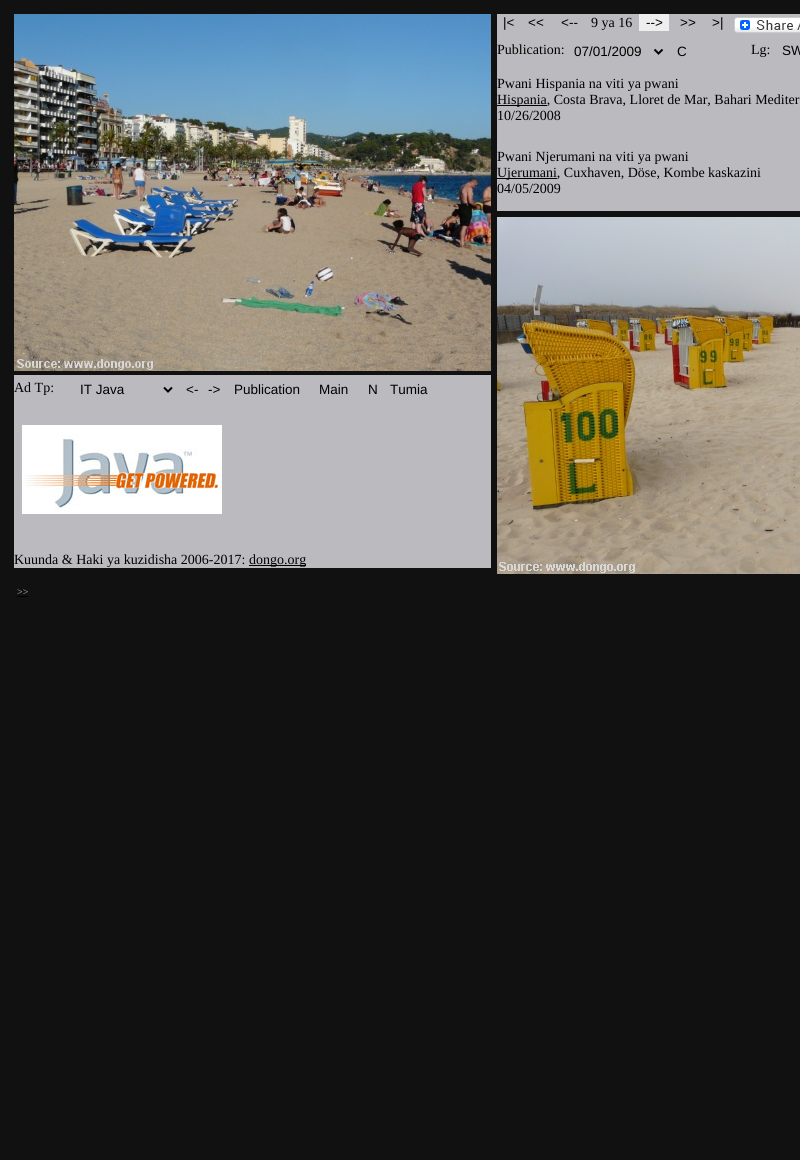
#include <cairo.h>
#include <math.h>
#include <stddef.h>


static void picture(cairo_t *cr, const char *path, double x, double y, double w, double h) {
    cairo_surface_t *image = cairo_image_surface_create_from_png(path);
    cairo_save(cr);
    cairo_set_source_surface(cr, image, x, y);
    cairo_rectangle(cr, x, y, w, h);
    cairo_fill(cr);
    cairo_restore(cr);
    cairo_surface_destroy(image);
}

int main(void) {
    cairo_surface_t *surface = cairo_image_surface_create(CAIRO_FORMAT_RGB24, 800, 1160);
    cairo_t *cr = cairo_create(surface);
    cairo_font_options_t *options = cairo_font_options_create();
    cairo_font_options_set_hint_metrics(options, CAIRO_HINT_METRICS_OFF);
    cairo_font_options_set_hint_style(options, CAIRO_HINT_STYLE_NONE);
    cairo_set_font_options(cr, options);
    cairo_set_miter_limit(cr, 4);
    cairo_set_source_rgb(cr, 0.067, 0.067, 0.067);
    cairo_paint(cr);
    cairo_set_source_rgb(cr, 0.733, 0.733, 0.749);
    cairo_rectangle(cr, 497, 14, 303, 197);
    cairo_fill(cr);
    cairo_select_font_face(cr, "Liberation Sans", CAIRO_FONT_SLANT_NORMAL, CAIRO_FONT_WEIGHT_NORMAL);
    cairo_set_font_size(cr, 13.5);
    cairo_set_source_rgb(cr, 0, 0, 0);
    cairo_move_to(cr, 503, 27);
    cairo_show_text(cr, "|<");
    cairo_move_to(cr, 528, 27);
    cairo_show_text(cr, "<<");
    cairo_move_to(cr, 561, 27);
    cairo_show_text(cr, "<--");
    cairo_select_font_face(cr, "Liberation Serif", CAIRO_FONT_SLANT_NORMAL, CAIRO_FONT_WEIGHT_NORMAL);
    cairo_set_font_size(cr, 14);
    cairo_move_to(cr, 591, 27);
    cairo_show_text(cr, "9 ya 16");
    cairo_set_source_rgb(cr, 0.933, 0.933, 0.937);
    cairo_rectangle(cr, 639, 14, 30, 17);
    cairo_fill(cr);
    cairo_select_font_face(cr, "Liberation Sans", CAIRO_FONT_SLANT_NORMAL, CAIRO_FONT_WEIGHT_NORMAL);
    cairo_set_font_size(cr, 13.5);
    cairo_set_source_rgb(cr, 0, 0, 0);
    cairo_move_to(cr, 646, 27);
    cairo_show_text(cr, "-->");
    cairo_move_to(cr, 680, 27);
    cairo_show_text(cr, ">>");
    cairo_move_to(cr, 712, 27);
    cairo_show_text(cr, ">|");
    picture(cr, "img1.png", 734, 17, 66, 16);
    cairo_select_font_face(cr, "Liberation Serif", CAIRO_FONT_SLANT_NORMAL, CAIRO_FONT_WEIGHT_NORMAL);
    cairo_set_font_size(cr, 14);
    cairo_move_to(cr, 497, 54);
    cairo_show_text(cr, "Publication:");
    cairo_new_path(cr);
    cairo_move_to(cr, 654.5, 49.5);
    cairo_line_to(cr, 658.5, 53.5);
    cairo_line_to(cr, 662.5, 49.5);
    cairo_stroke(cr);
    cairo_select_font_face(cr, "Liberation Sans", CAIRO_FONT_SLANT_NORMAL, CAIRO_FONT_WEIGHT_NORMAL);
    cairo_set_font_size(cr, 13.5);
    cairo_move_to(cr, 574, 56);
    cairo_show_text(cr, "07/01/2009");
    cairo_move_to(cr, 677, 56);
    cairo_show_text(cr, "C");
    cairo_select_font_face(cr, "Liberation Serif", CAIRO_FONT_SLANT_NORMAL, CAIRO_FONT_WEIGHT_NORMAL);
    cairo_set_font_size(cr, 14);
    cairo_move_to(cr, 751, 54);
    cairo_show_text(cr, "Lg:");
    cairo_select_font_face(cr, "Liberation Sans", CAIRO_FONT_SLANT_NORMAL, CAIRO_FONT_WEIGHT_NORMAL);
    cairo_set_font_size(cr, 13.5);
    cairo_move_to(cr, 782, 55);
    cairo_show_text(cr, "SW");
    cairo_select_font_face(cr, "Liberation Serif", CAIRO_FONT_SLANT_NORMAL, CAIRO_FONT_WEIGHT_NORMAL);
    cairo_set_font_size(cr, 14);
    cairo_move_to(cr, 497, 88);
    cairo_show_text(cr, "Pwani Hispania na viti ya pwani");
    cairo_rectangle(cr, 497, 105, 50, 1);
    cairo_fill(cr);
    cairo_move_to(cr, 497, 104);
    cairo_show_text(cr, "Hispania, Costa Brava, Lloret de Mar, Bahari Mediter");
    cairo_move_to(cr, 497, 120);
    cairo_show_text(cr, "10/26/2008");
    cairo_move_to(cr, 497, 161);
    cairo_show_text(cr, "Pwani Njerumani na viti ya pwani");
    cairo_rectangle(cr, 497, 178, 60, 1);
    cairo_fill(cr);
    cairo_move_to(cr, 497, 177);
    cairo_show_text(cr, "Ujerumani, Cuxhaven, Döse, Kombe kaskazini");
    cairo_move_to(cr, 497, 193);
    cairo_show_text(cr, "04/05/2009");
    picture(cr, "img2.png", 497, 217, 303, 357);
    picture(cr, "img3.png", 14, 14, 477, 357);
    cairo_set_source_rgb(cr, 0.733, 0.733, 0.749);
    cairo_rectangle(cr, 14, 375, 477, 193);
    cairo_fill(cr);
    cairo_set_source_rgb(cr, 0, 0, 0);
    cairo_move_to(cr, 14, 392);
    cairo_show_text(cr, "Ad Tp:");
    cairo_new_path(cr);
    cairo_move_to(cr, 164, 387.5);
    cairo_line_to(cr, 168, 391.5);
    cairo_line_to(cr, 172, 387.5);
    cairo_stroke(cr);
    cairo_select_font_face(cr, "Liberation Sans", CAIRO_FONT_SLANT_NORMAL, CAIRO_FONT_WEIGHT_NORMAL);
    cairo_set_font_size(cr, 13.5);
    cairo_move_to(cr, 80, 394);
    cairo_show_text(cr, "IT Java");
    cairo_move_to(cr, 186, 394);
    cairo_show_text(cr, "<-");
    cairo_move_to(cr, 208, 394);
    cairo_show_text(cr, "->");
    cairo_move_to(cr, 234, 394);
    cairo_show_text(cr, "Publication");
    cairo_move_to(cr, 319, 394);
    cairo_show_text(cr, "Main");
    cairo_move_to(cr, 368, 394);
    cairo_show_text(cr, "N");
    cairo_move_to(cr, 390, 394);
    cairo_show_text(cr, "Tumia");
    picture(cr, "img4.png", 22, 425, 200, 89);
    cairo_select_font_face(cr, "Liberation Serif", CAIRO_FONT_SLANT_NORMAL, CAIRO_FONT_WEIGHT_NORMAL);
    cairo_set_font_size(cr, 14);
    cairo_move_to(cr, 14, 564);
    cairo_show_text(cr, "Kuunda & Haki ya kuzidisha 2006-2017:");
    cairo_rectangle(cr, 249, 565, 57, 1);
    cairo_fill(cr);
    cairo_move_to(cr, 249, 564);
    cairo_show_text(cr, "dongo.org");
    cairo_set_font_size(cr, 10);
    cairo_set_source_rgb(cr, 0.733, 0.733, 0.733);
    cairo_move_to(cr, 17, 595);
    cairo_show_text(cr, ">>");
    cairo_set_source_rgb(cr, 0, 0, 0);
    cairo_rectangle(cr, 17, 596, 11, 1);
    cairo_fill(cr);
    cairo_surface_write_to_png(surface, "page.png");
    cairo_font_options_destroy(options);
    cairo_destroy(cr);
    cairo_surface_destroy(surface);
    return 0;
}
